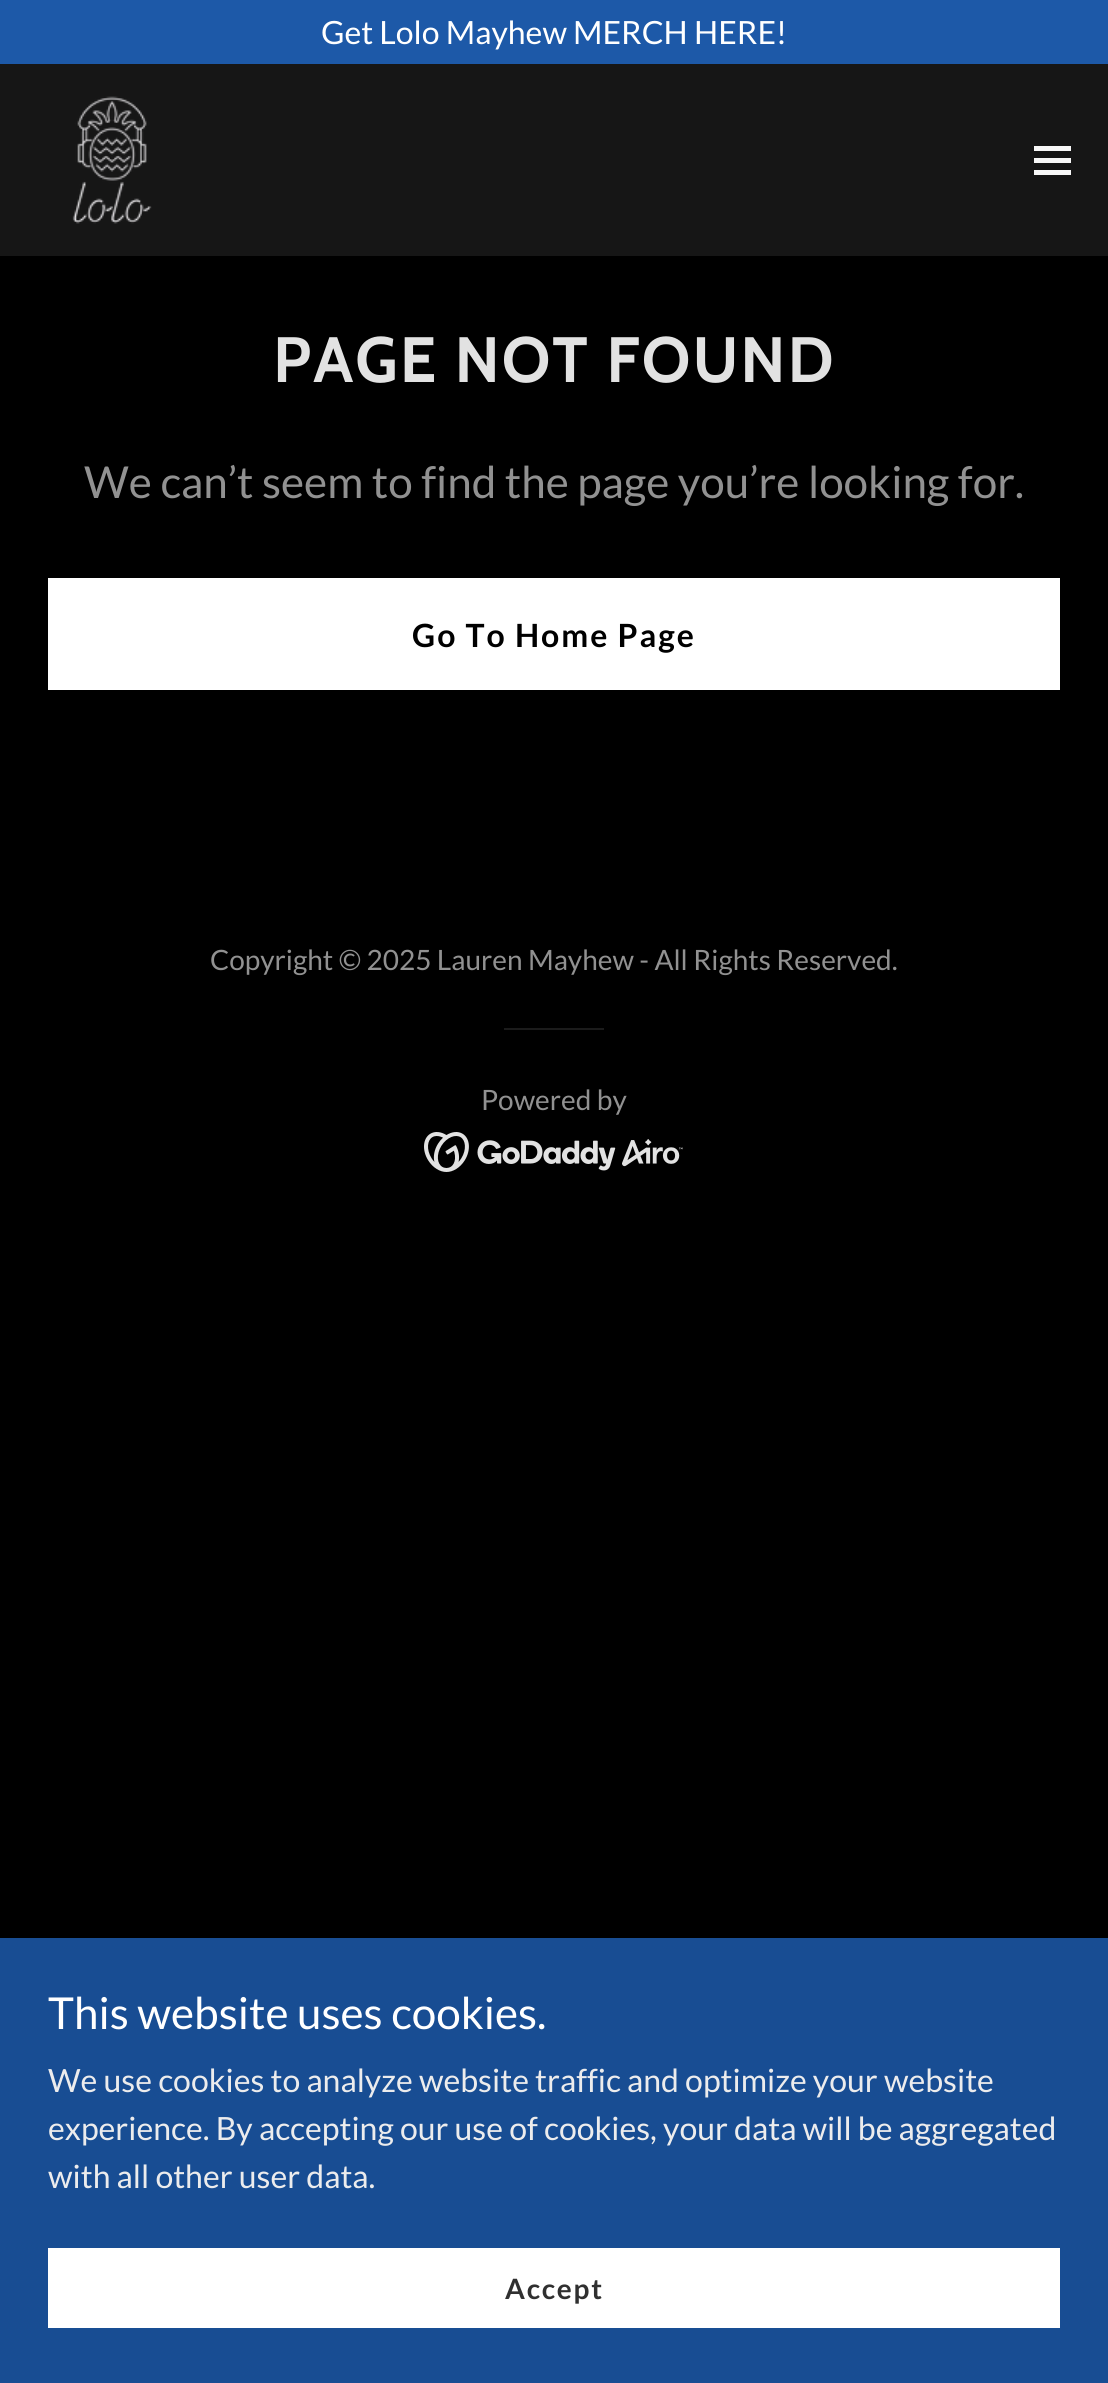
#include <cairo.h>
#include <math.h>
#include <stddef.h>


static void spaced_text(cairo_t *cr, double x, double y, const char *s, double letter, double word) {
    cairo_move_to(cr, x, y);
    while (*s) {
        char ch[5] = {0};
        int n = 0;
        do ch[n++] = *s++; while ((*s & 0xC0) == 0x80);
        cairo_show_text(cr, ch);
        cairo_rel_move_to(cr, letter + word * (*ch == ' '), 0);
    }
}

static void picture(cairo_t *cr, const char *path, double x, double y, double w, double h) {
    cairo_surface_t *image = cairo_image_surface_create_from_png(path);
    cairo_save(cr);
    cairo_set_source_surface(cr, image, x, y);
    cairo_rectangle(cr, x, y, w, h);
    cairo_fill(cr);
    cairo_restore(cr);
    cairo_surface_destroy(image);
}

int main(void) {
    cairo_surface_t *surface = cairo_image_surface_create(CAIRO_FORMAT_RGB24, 1108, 2383);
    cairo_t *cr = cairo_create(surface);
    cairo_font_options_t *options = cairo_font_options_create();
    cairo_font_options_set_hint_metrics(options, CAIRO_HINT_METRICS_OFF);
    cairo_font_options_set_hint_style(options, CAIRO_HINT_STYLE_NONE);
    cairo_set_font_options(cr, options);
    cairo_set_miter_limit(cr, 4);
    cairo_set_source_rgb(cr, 0, 0, 0);
    cairo_paint(cr);
    cairo_set_source_rgb(cr, 0.086, 0.086, 0.086);
    cairo_rectangle(cr, 0, 64, 1108, 192);
    cairo_fill(cr);
    cairo_set_source_rgb(cr, 0.114, 0.349, 0.659);
    cairo_rectangle(cr, 0, 0, 1108, 64);
    cairo_fill(cr);
    cairo_select_font_face(cr, "Lato", CAIRO_FONT_SLANT_NORMAL, CAIRO_FONT_WEIGHT_NORMAL);
    cairo_set_font_size(cr, 32);
    cairo_set_source_rgb(cr, 1, 1, 1);
    cairo_move_to(cr, 321, 44);
    cairo_show_text(cr, "Get Lolo Mayhew MERCH HERE!");
    picture(cr, "img1.png", 72, 96, 80, 128);
    cairo_set_source_rgb(cr, 0.969, 0.969, 0.969);
    cairo_rectangle(cr, 1034, 146, 37, 5);
    cairo_fill(cr);
    cairo_rectangle(cr, 1034, 158, 37, 5);
    cairo_fill(cr);
    cairo_rectangle(cr, 1034, 170, 37, 5);
    cairo_fill(cr);
    cairo_select_font_face(cr, "Cabin", CAIRO_FONT_SLANT_NORMAL, CAIRO_FONT_WEIGHT_BOLD);
    cairo_set_font_size(cr, 64);
    cairo_set_source_rgb(cr, 0.886, 0.886, 0.886);
    spaced_text(cr, 273, 382, "PAGE NOT FOUND", 2, 0);
    cairo_select_font_face(cr, "Lato", CAIRO_FONT_SLANT_NORMAL, CAIRO_FONT_WEIGHT_NORMAL);
    cairo_set_font_size(cr, 44);
    cairo_set_source_rgb(cr, 0.569, 0.569, 0.569);
    cairo_move_to(cr, 84, 498);
    cairo_show_text(cr, "We can’t seem to find the page you’re looking for.");
    cairo_set_source_rgb(cr, 1, 1, 1);
    cairo_rectangle(cr, 48, 578, 1012, 112);
    cairo_fill(cr);
    cairo_select_font_face(cr, "Lato", CAIRO_FONT_SLANT_NORMAL, CAIRO_FONT_WEIGHT_BOLD);
    cairo_set_font_size(cr, 32);
    cairo_set_source_rgb(cr, 0, 0, 0);
    spaced_text(cr, 412, 647, "Go To Home Page", 2, 0);
    cairo_select_font_face(cr, "Lato", CAIRO_FONT_SLANT_NORMAL, CAIRO_FONT_WEIGHT_NORMAL);
    cairo_set_font_size(cr, 28);
    cairo_set_source_rgb(cr, 0.569, 0.569, 0.569);
    cairo_move_to(cr, 210, 970);
    cairo_show_text(cr, "Copyright © 2025 Lauren Mayhew - All Rights Reserved.");
    cairo_set_source_rgb(cr, 0.106, 0.106, 0.106);
    cairo_rectangle(cr, 504, 1028, 100, 2);
    cairo_fill(cr);
    cairo_set_source_rgb(cr, 0.569, 0.569, 0.569);
    cairo_move_to(cr, 481, 1110);
    cairo_show_text(cr, "Powered by");
    picture(cr, "img2.png", 424, 1132, 259, 40);
    cairo_set_source_rgb(cr, 0.094, 0.302, 0.576);
    cairo_rectangle(cr, 0, 1938, 1108, 445);
    cairo_fill(cr);
    cairo_set_font_size(cr, 44);
    cairo_set_source_rgb(cr, 1, 1, 1);
    cairo_move_to(cr, 48, 2029);
    cairo_show_text(cr, "This website uses cookies.");
    cairo_set_font_size(cr, 32);
    cairo_set_source_rgb(cr, 0.922, 0.925, 0.929);
    cairo_move_to(cr, 48, 2092);
    cairo_show_text(cr, "We use cookies to analyze website traffic and optimize your website");
    cairo_move_to(cr, 48, 2140);
    cairo_show_text(cr, "experience. By accepting our use of cookies, your data will be aggregated");
    cairo_move_to(cr, 48, 2188);
    cairo_show_text(cr, "with all other user data.");
    cairo_set_source_rgb(cr, 1, 1, 1);
    cairo_rectangle(cr, 48, 2248, 1012, 80);
    cairo_fill(cr);
    cairo_select_font_face(cr, "Lato", CAIRO_FONT_SLANT_NORMAL, CAIRO_FONT_WEIGHT_BOLD);
    cairo_set_font_size(cr, 28);
    cairo_set_source_rgb(cr, 0.188, 0.188, 0.188);
    spaced_text(cr, 505, 2299, "Accept", 1.75, 0);
    cairo_surface_write_to_png(surface, "page.png");
    cairo_font_options_destroy(options);
    cairo_destroy(cr);
    cairo_surface_destroy(surface);
    return 0;
}
